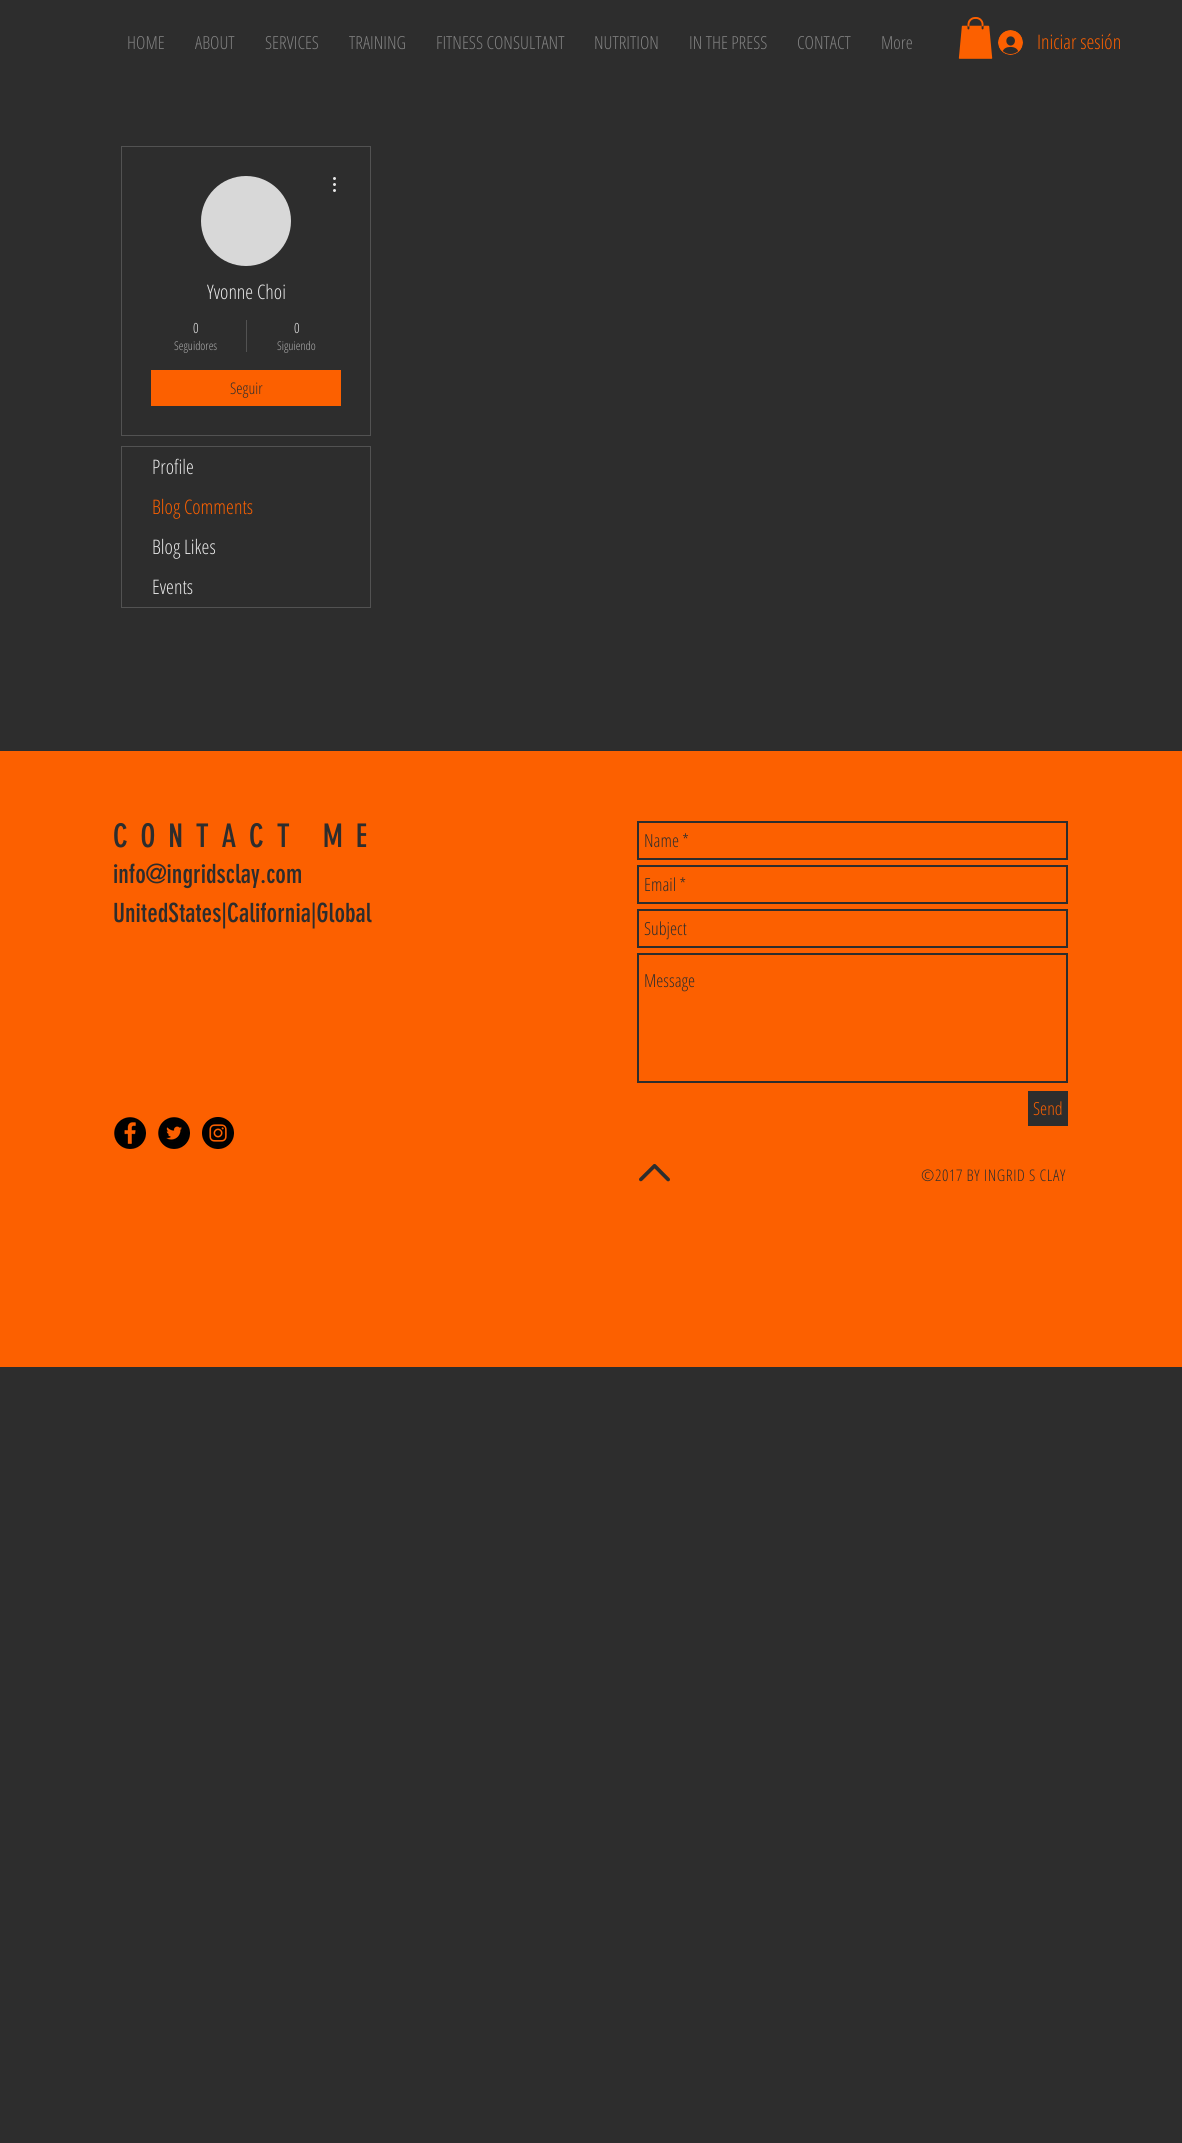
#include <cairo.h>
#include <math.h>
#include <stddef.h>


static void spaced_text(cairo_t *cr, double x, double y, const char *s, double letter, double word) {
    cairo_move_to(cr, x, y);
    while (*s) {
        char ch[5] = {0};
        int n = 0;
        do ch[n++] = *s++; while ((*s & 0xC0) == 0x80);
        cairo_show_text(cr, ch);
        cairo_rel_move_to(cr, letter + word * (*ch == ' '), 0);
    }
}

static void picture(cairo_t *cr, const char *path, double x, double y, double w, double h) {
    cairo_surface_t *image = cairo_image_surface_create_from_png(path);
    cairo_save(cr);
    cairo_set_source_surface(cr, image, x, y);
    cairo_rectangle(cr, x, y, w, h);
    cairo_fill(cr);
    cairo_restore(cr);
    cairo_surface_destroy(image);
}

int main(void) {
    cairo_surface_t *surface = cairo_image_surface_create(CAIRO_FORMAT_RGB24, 1182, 2143);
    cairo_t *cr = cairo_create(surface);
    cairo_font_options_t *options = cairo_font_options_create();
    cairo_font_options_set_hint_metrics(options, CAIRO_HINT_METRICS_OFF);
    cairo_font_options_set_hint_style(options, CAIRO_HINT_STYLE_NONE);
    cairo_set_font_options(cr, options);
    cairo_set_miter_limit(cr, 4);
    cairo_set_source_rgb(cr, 0.176, 0.176, 0.176);
    cairo_paint(cr);
    cairo_select_font_face(cr, "Open Sans Condensed Light", CAIRO_FONT_SLANT_NORMAL, CAIRO_FONT_WEIGHT_NORMAL);
    cairo_set_font_size(cr, 18);
    cairo_set_source_rgb(cr, 0.506, 0.506, 0.506);
    cairo_move_to(cr, 127, 49);
    cairo_show_text(cr, "HOME");
    cairo_move_to(cr, 195, 49);
    cairo_show_text(cr, "ABOUT");
    cairo_move_to(cr, 265, 49);
    cairo_show_text(cr, "SERVICES");
    cairo_move_to(cr, 349, 49);
    cairo_show_text(cr, "TRAINING");
    cairo_move_to(cr, 436, 49);
    cairo_show_text(cr, "FITNESS CONSULTANT");
    cairo_move_to(cr, 594, 49);
    cairo_show_text(cr, "NUTRITION");
    cairo_move_to(cr, 689, 49);
    cairo_show_text(cr, "IN THE PRESS");
    cairo_move_to(cr, 797, 49);
    cairo_show_text(cr, "CONTACT");
    cairo_move_to(cr, 881, 49);
    cairo_show_text(cr, "More");
    picture(cr, "img1.png", 958, 17, 35, 42);
    picture(cr, "img2.png", 998, 30, 25, 25);
    cairo_set_font_size(cr, 20);
    cairo_set_source_rgb(cr, 0.988, 0.376, 0);
    cairo_move_to(cr, 1037, 49);
    cairo_show_text(cr, "Iniciar sesión");
    cairo_rectangle(cr, 121.5, 146.5, 249, 289);
    cairo_set_source_rgb(cr, 0.322, 0.322, 0.322);
    cairo_set_line_width(cr, 1);
    cairo_stroke(cr);
    cairo_set_source_rgb(cr, 0.847, 0.847, 0.847);
    cairo_arc(cr, 246, 221, 45, 0, 2 * M_PI);
    cairo_fill(cr);
    picture(cr, "img3.png", 333, 177, 3, 15);
    cairo_set_source_rgb(cr, 0.91, 0.91, 0.91);
    cairo_move_to(cr, 207, 299);
    cairo_show_text(cr, "Yvonne Choi");
    cairo_set_font_size(cr, 14);
    cairo_move_to(cr, 193, 333);
    cairo_show_text(cr, "0");
    cairo_set_font_size(cr, 12);
    cairo_set_source_rgb(cr, 0.69, 0.69, 0.69);
    cairo_move_to(cr, 174, 350);
    cairo_show_text(cr, "Seguidores");
    cairo_set_source_rgb(cr, 0.322, 0.322, 0.322);
    cairo_rectangle(cr, 246, 320, 1, 32);
    cairo_fill(cr);
    cairo_set_font_size(cr, 14);
    cairo_set_source_rgb(cr, 0.91, 0.91, 0.91);
    cairo_move_to(cr, 294, 333);
    cairo_show_text(cr, "0");
    cairo_set_font_size(cr, 12);
    cairo_set_source_rgb(cr, 0.69, 0.69, 0.69);
    cairo_move_to(cr, 277, 350);
    cairo_show_text(cr, "Siguiendo");
    cairo_set_source_rgb(cr, 0.988, 0.376, 0);
    cairo_rectangle(cr, 151, 370, 190, 36);
    cairo_fill(cr);
    cairo_set_font_size(cr, 16);
    cairo_set_source_rgb(cr, 0.176, 0.176, 0.176);
    cairo_move_to(cr, 230, 394);
    cairo_show_text(cr, "Seguir");
    cairo_rectangle(cr, 121.5, 446.5, 249, 161);
    cairo_set_source_rgb(cr, 0.322, 0.322, 0.322);
    cairo_stroke(cr);
    cairo_set_font_size(cr, 20);
    cairo_set_source_rgb(cr, 0.91, 0.91, 0.91);
    cairo_move_to(cr, 152, 474);
    cairo_show_text(cr, "Profile");
    cairo_set_source_rgb(cr, 0.988, 0.376, 0);
    cairo_move_to(cr, 152, 514);
    cairo_show_text(cr, "Blog Comments");
    cairo_set_source_rgb(cr, 0.91, 0.91, 0.91);
    cairo_move_to(cr, 152, 554);
    cairo_show_text(cr, "Blog Likes");
    cairo_move_to(cr, 152, 594);
    cairo_show_text(cr, "Events");
    cairo_set_source_rgb(cr, 0.988, 0.376, 0);
    cairo_rectangle(cr, 0, 751, 1182, 616);
    cairo_fill(cr);
    cairo_select_font_face(cr, "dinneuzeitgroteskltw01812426", CAIRO_FONT_SLANT_NORMAL, CAIRO_FONT_WEIGHT_NORMAL);
    cairo_set_font_size(cr, 32);
    cairo_set_source_rgb(cr, 0.176, 0.176, 0.176);
    spaced_text(cr, 113, 847, "CONTACT ME", 12.75, 0);
    cairo_rectangle(cr, 638, 822, 429, 37);
    cairo_set_line_width(cr, 2);
    cairo_stroke(cr);
    cairo_select_font_face(cr, "Open Sans Condensed Light", CAIRO_FONT_SLANT_NORMAL, CAIRO_FONT_WEIGHT_NORMAL);
    cairo_set_font_size(cr, 18);
    cairo_move_to(cr, 644, 847);
    cairo_show_text(cr, "Name *");
    cairo_rectangle(cr, 638, 866, 429, 37);
    cairo_stroke(cr);
    cairo_move_to(cr, 644, 891);
    cairo_show_text(cr, "Email *");
    cairo_rectangle(cr, 638, 910, 429, 37);
    cairo_stroke(cr);
    cairo_move_to(cr, 644, 935);
    cairo_show_text(cr, "Subject");
    cairo_rectangle(cr, 638, 954, 429, 128);
    cairo_stroke(cr);
    cairo_move_to(cr, 644, 987);
    cairo_show_text(cr, "Message");
    cairo_rectangle(cr, 1028, 1091, 40, 35);
    cairo_fill(cr);
    cairo_set_source_rgb(cr, 0.988, 0.376, 0);
    cairo_move_to(cr, 1033, 1115);
    cairo_show_text(cr, "Send");
    cairo_select_font_face(cr, "dinneuzeitgroteskltw01812426", CAIRO_FONT_SLANT_NORMAL, CAIRO_FONT_WEIGHT_NORMAL);
    cairo_set_font_size(cr, 26);
    cairo_set_source_rgb(cr, 0.176, 0.176, 0.176);
    cairo_move_to(cr, 113, 883);
    cairo_show_text(cr, "info@ingridsclay.com");
    cairo_move_to(cr, 113, 922);
    cairo_show_text(cr, "UnitedStates|California|Global");
    picture(cr, "img4.png", 114, 1117, 32, 32);
    picture(cr, "img5.png", 158, 1117, 32, 32);
    picture(cr, "img6.png", 202, 1117, 32, 32);
    picture(cr, "img7.png", 639, 1164, 31, 18);
    cairo_select_font_face(cr, "Open Sans Condensed Light", CAIRO_FONT_SLANT_NORMAL, CAIRO_FONT_WEIGHT_NORMAL);
    cairo_set_font_size(cr, 16);
    spaced_text(cr, 921, 1181, "©2017 BY INGRID S CLAY", 0.6, 0);
    cairo_surface_write_to_png(surface, "page.png");
    cairo_font_options_destroy(options);
    cairo_destroy(cr);
    cairo_surface_destroy(surface);
    return 0;
}
